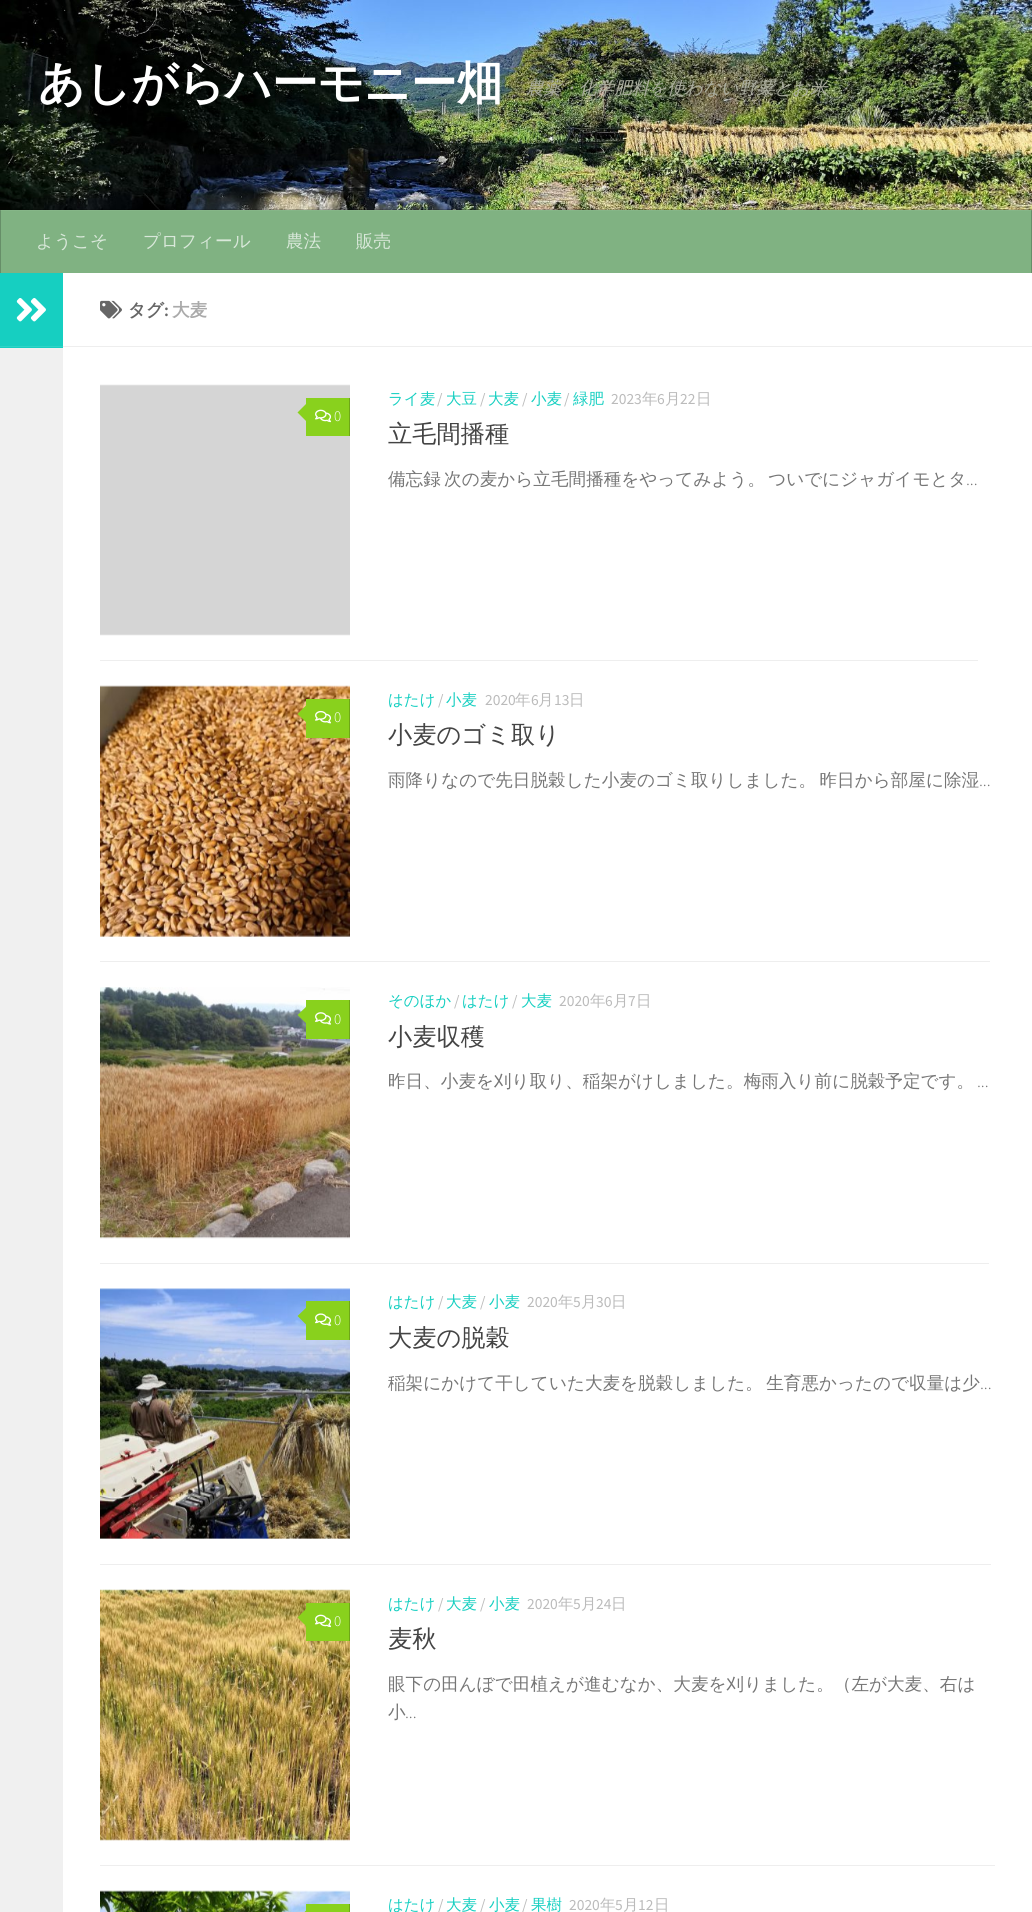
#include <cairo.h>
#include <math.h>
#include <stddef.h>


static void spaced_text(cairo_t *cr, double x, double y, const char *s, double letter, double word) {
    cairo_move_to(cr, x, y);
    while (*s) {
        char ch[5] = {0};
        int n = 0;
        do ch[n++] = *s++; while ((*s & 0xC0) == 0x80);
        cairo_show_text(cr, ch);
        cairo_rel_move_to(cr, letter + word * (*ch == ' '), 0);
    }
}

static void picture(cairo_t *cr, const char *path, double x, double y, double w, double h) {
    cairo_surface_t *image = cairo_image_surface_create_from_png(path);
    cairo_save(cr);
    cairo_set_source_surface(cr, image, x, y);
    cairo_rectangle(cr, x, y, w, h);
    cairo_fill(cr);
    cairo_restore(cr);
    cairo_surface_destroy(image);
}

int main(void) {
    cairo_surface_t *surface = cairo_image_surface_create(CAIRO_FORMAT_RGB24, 1032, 1912);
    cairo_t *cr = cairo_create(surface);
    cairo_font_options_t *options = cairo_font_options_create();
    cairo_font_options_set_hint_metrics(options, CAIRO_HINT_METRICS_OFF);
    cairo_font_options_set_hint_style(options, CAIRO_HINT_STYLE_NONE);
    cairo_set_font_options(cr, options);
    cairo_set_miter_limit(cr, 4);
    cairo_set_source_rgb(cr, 1, 1, 1);
    cairo_paint(cr);
    picture(cr, "img1.png", 0, 0, 1032, 210);
    cairo_select_font_face(cr, "WenQuanYi Zen Hei", CAIRO_FONT_SLANT_NORMAL, CAIRO_FONT_WEIGHT_BOLD);
    cairo_set_font_size(cr, 46.25);
    cairo_set_source_rgb(cr, 1, 1, 1);
    spaced_text(cr, 38, 99, "あしがらハーモニー畑", -0.6, 0);
    cairo_select_font_face(cr, "WenQuanYi Zen Hei Medium", CAIRO_FONT_SLANT_ITALIC, CAIRO_FONT_WEIGHT_NORMAL);
    cairo_set_font_size(cr, 17.6);
    cairo_set_source_rgb(cr, 0.667, 0.678, 0.62);
    cairo_move_to(cr, 526, 94);
    cairo_show_text(cr, "農薬・化学肥料を使わない野菜とお米");
    cairo_set_source_rgba(cr, 0, 0, 0, 0.2);
    cairo_new_path(cr);
    cairo_move_to(cr, 0, 209);
    cairo_line_to(cr, 0, 210);
    cairo_line_to(cr, 1032, 210);
    cairo_line_to(cr, 1032, 271);
    cairo_line_to(cr, 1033, 271);
    cairo_line_to(cr, 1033, 209);
    cairo_close_path(cr);
    cairo_fill(cr);
    cairo_set_source_rgb(cr, 0.502, 0.698, 0.51);
    cairo_rectangle(cr, 1, 211, 1030, 62);
    cairo_fill(cr);
    cairo_set_source_rgb(cr, 0.525, 0.714, 0.533);
    cairo_rectangle(cr, 0, 210, 1032, 1);
    cairo_fill(cr);
    cairo_set_source_rgb(cr, 0.4, 0.557, 0.408);
    cairo_rectangle(cr, 1031, 210, 1, 63);
    cairo_fill(cr);
    cairo_set_source_rgb(cr, 0.431, 0.58, 0.439);
    cairo_rectangle(cr, 1031, 210, 1, 1);
    cairo_fill(cr);
    cairo_set_source_rgb(cr, 0.4, 0.557, 0.408);
    cairo_rectangle(cr, 0, 210, 1, 63);
    cairo_fill(cr);
    cairo_set_source_rgb(cr, 0.431, 0.58, 0.439);
    cairo_rectangle(cr, 0, 210, 1, 1);
    cairo_fill(cr);
    cairo_select_font_face(cr, "WenQuanYi Zen Hei Medium", CAIRO_FONT_SLANT_NORMAL, CAIRO_FONT_WEIGHT_NORMAL);
    cairo_set_source_rgb(cr, 0.851, 0.91, 0.855);
    cairo_move_to(cr, 36, 247);
    cairo_show_text(cr, "ようこそ");
    cairo_move_to(cr, 143, 247);
    cairo_show_text(cr, "プロフィール");
    cairo_move_to(cr, 286, 247);
    cairo_show_text(cr, "農法");
    cairo_move_to(cr, 356, 247);
    cairo_show_text(cr, "販売");
    cairo_set_source_rgb(cr, 0.941, 0.941, 0.941);
    cairo_rectangle(cr, 0, 348, 63, 1564);
    cairo_fill(cr);
    cairo_set_source_rgb(cr, 0.086, 0.812, 0.757);
    cairo_rectangle(cr, 0, 273, 63, 75);
    cairo_fill(cr);
    cairo_set_source_rgb(cr, 0.176, 0.831, 0.78);
    cairo_rectangle(cr, 0, 346, 63, 1);
    cairo_fill(cr);
    picture(cr, "img2.png", 16, 298, 30, 24);
    cairo_set_source_rgb(cr, 0.933, 0.933, 0.933);
    cairo_rectangle(cr, 63, 346, 969, 1);
    cairo_fill(cr);
    picture(cr, "img3.png", 100, 300, 22, 19);
    cairo_select_font_face(cr, "WenQuanYi Zen Hei", CAIRO_FONT_SLANT_NORMAL, CAIRO_FONT_WEIGHT_BOLD);
    cairo_set_source_rgb(cr, 0.4, 0.4, 0.4);
    cairo_move_to(cr, 128, 316);
    cairo_show_text(cr, "タグ");
    cairo_select_font_face(cr, "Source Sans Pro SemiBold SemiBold", CAIRO_FONT_SLANT_NORMAL, CAIRO_FONT_WEIGHT_NORMAL);
    cairo_move_to(cr, 164, 316);
    cairo_show_text(cr, ":");
    cairo_select_font_face(cr, "WenQuanYi Zen Hei", CAIRO_FONT_SLANT_NORMAL, CAIRO_FONT_WEIGHT_BOLD);
    cairo_set_source_rgb(cr, 0.667, 0.667, 0.667);
    cairo_move_to(cr, 172, 316);
    cairo_show_text(cr, "大麦");
    cairo_set_source_rgb(cr, 0.933, 0.933, 0.933);
    cairo_rectangle(cr, 100, 660, 878, 1);
    cairo_fill(cr);
    picture(cr, "img4.png", 100, 384, 250, 252);
    cairo_set_source_rgb(cr, 0.537, 0.82, 0.114);
    cairo_rectangle(cr, 306, 398, 43, 38);
    cairo_fill(cr);
    cairo_set_source_rgb(cr, 0.431, 0.655, 0.09);
    cairo_rectangle(cr, 349, 398, 1, 38);
    cairo_fill(cr);
    cairo_set_source_rgb(cr, 0.537, 0.82, 0.114);
    cairo_new_path(cr);
    cairo_move_to(cr, 309, 401);
    cairo_line_to(cr, 309, 424);
    cairo_line_to(cr, 297.5, 412.5);
    cairo_close_path(cr);
    cairo_fill(cr);
    picture(cr, "img5.png", 315, 409, 17, 14);
    cairo_select_font_face(cr, "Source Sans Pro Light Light", CAIRO_FONT_SLANT_NORMAL, CAIRO_FONT_WEIGHT_NORMAL);
    cairo_set_font_size(cr, 15);
    cairo_set_source_rgb(cr, 1, 1, 1);
    cairo_move_to(cr, 334, 421);
    cairo_show_text(cr, "0");
    cairo_select_font_face(cr, "WenQuanYi Zen Hei Medium", CAIRO_FONT_SLANT_NORMAL, CAIRO_FONT_WEIGHT_NORMAL);
    cairo_set_font_size(cr, 15.5);
    cairo_set_source_rgb(cr, 0.086, 0.812, 0.757);
    cairo_move_to(cr, 388, 404);
    cairo_show_text(cr, "ライ麦");
    cairo_select_font_face(cr, "Source Sans Pro", CAIRO_FONT_SLANT_NORMAL, CAIRO_FONT_WEIGHT_NORMAL);
    cairo_set_source_rgb(cr, 0.733, 0.733, 0.733);
    cairo_move_to(cr, 437, 404);
    cairo_show_text(cr, "/");
    cairo_select_font_face(cr, "WenQuanYi Zen Hei Medium", CAIRO_FONT_SLANT_NORMAL, CAIRO_FONT_WEIGHT_NORMAL);
    cairo_set_source_rgb(cr, 0.086, 0.812, 0.757);
    cairo_move_to(cr, 446, 404);
    cairo_show_text(cr, "大豆");
    cairo_select_font_face(cr, "Source Sans Pro", CAIRO_FONT_SLANT_NORMAL, CAIRO_FONT_WEIGHT_NORMAL);
    cairo_set_source_rgb(cr, 0.733, 0.733, 0.733);
    cairo_move_to(cr, 480, 404);
    cairo_show_text(cr, "/");
    cairo_select_font_face(cr, "WenQuanYi Zen Hei Medium", CAIRO_FONT_SLANT_NORMAL, CAIRO_FONT_WEIGHT_NORMAL);
    cairo_set_source_rgb(cr, 0.086, 0.812, 0.757);
    cairo_move_to(cr, 488, 404);
    cairo_show_text(cr, "大麦");
    cairo_select_font_face(cr, "Source Sans Pro", CAIRO_FONT_SLANT_NORMAL, CAIRO_FONT_WEIGHT_NORMAL);
    cairo_set_source_rgb(cr, 0.733, 0.733, 0.733);
    cairo_move_to(cr, 522, 404);
    cairo_show_text(cr, "/");
    cairo_select_font_face(cr, "WenQuanYi Zen Hei Medium", CAIRO_FONT_SLANT_NORMAL, CAIRO_FONT_WEIGHT_NORMAL);
    cairo_set_source_rgb(cr, 0.086, 0.812, 0.757);
    cairo_move_to(cr, 531, 404);
    cairo_show_text(cr, "小麦");
    cairo_select_font_face(cr, "Source Sans Pro", CAIRO_FONT_SLANT_NORMAL, CAIRO_FONT_WEIGHT_NORMAL);
    cairo_set_source_rgb(cr, 0.733, 0.733, 0.733);
    cairo_move_to(cr, 564, 404);
    cairo_show_text(cr, "/");
    cairo_select_font_face(cr, "WenQuanYi Zen Hei Medium", CAIRO_FONT_SLANT_NORMAL, CAIRO_FONT_WEIGHT_NORMAL);
    cairo_set_source_rgb(cr, 0.086, 0.812, 0.757);
    cairo_move_to(cr, 573, 404);
    cairo_show_text(cr, "緑肥");
    cairo_select_font_face(cr, "Source Sans Pro", CAIRO_FONT_SLANT_NORMAL, CAIRO_FONT_WEIGHT_NORMAL);
    cairo_set_source_rgb(cr, 0.733, 0.733, 0.733);
    cairo_move_to(cr, 611, 404);
    cairo_show_text(cr, "2023");
    cairo_select_font_face(cr, "WenQuanYi Zen Hei Medium", CAIRO_FONT_SLANT_NORMAL, CAIRO_FONT_WEIGHT_NORMAL);
    cairo_move_to(cr, 642, 404);
    cairo_show_text(cr, "年");
    cairo_select_font_face(cr, "Source Sans Pro", CAIRO_FONT_SLANT_NORMAL, CAIRO_FONT_WEIGHT_NORMAL);
    cairo_move_to(cr, 657, 404);
    cairo_show_text(cr, "6");
    cairo_select_font_face(cr, "WenQuanYi Zen Hei Medium", CAIRO_FONT_SLANT_NORMAL, CAIRO_FONT_WEIGHT_NORMAL);
    cairo_move_to(cr, 665, 404);
    cairo_show_text(cr, "月");
    cairo_select_font_face(cr, "Source Sans Pro", CAIRO_FONT_SLANT_NORMAL, CAIRO_FONT_WEIGHT_NORMAL);
    cairo_move_to(cr, 680, 404);
    cairo_show_text(cr, "22");
    cairo_select_font_face(cr, "WenQuanYi Zen Hei Medium", CAIRO_FONT_SLANT_NORMAL, CAIRO_FONT_WEIGHT_NORMAL);
    cairo_move_to(cr, 696, 404);
    cairo_show_text(cr, "日");
    cairo_set_font_size(cr, 24.25);
    cairo_set_source_rgb(cr, 0.267, 0.267, 0.267);
    cairo_move_to(cr, 388, 442);
    cairo_show_text(cr, "立毛間播種");
    cairo_set_font_size(cr, 17.6);
    cairo_set_source_rgb(cr, 0.463, 0.463, 0.463);
    spaced_text(cr, 388, 485, "備忘録 次の麦から立毛間播種をやってみよう。 ついでにジャガイモとタ", 0, -2);
    cairo_select_font_face(cr, "Source Sans Pro Light Light", CAIRO_FONT_SLANT_NORMAL, CAIRO_FONT_WEIGHT_NORMAL);
    cairo_move_to(cr, 966, 485);
    cairo_show_text(cr, "...");
    cairo_set_source_rgb(cr, 0.933, 0.933, 0.933);
    cairo_rectangle(cr, 100, 961, 890, 1);
    cairo_fill(cr);
    picture(cr, "img6.png", 100, 685, 250, 252);
    cairo_set_source_rgb(cr, 0.537, 0.82, 0.114);
    cairo_rectangle(cr, 306, 699, 43, 39);
    cairo_fill(cr);
    cairo_set_source_rgb(cr, 0.431, 0.655, 0.09);
    cairo_rectangle(cr, 349, 699, 1, 39);
    cairo_fill(cr);
    cairo_set_source_rgb(cr, 0.537, 0.82, 0.114);
    cairo_new_path(cr);
    cairo_move_to(cr, 309, 702.5);
    cairo_line_to(cr, 309, 725);
    cairo_line_to(cr, 297.5, 714);
    cairo_close_path(cr);
    cairo_fill(cr);
    picture(cr, "img7.png", 315, 710, 16, 14);
    cairo_set_font_size(cr, 15);
    cairo_set_source_rgb(cr, 1, 1, 1);
    cairo_move_to(cr, 334, 722);
    cairo_show_text(cr, "0");
    cairo_select_font_face(cr, "WenQuanYi Zen Hei Medium", CAIRO_FONT_SLANT_NORMAL, CAIRO_FONT_WEIGHT_NORMAL);
    cairo_set_font_size(cr, 15.5);
    cairo_set_source_rgb(cr, 0.086, 0.812, 0.757);
    cairo_move_to(cr, 388, 705);
    cairo_show_text(cr, "はたけ");
    cairo_select_font_face(cr, "Source Sans Pro", CAIRO_FONT_SLANT_NORMAL, CAIRO_FONT_WEIGHT_NORMAL);
    cairo_set_source_rgb(cr, 0.733, 0.733, 0.733);
    cairo_move_to(cr, 438, 705);
    cairo_show_text(cr, "/");
    cairo_select_font_face(cr, "WenQuanYi Zen Hei Medium", CAIRO_FONT_SLANT_NORMAL, CAIRO_FONT_WEIGHT_NORMAL);
    cairo_set_source_rgb(cr, 0.086, 0.812, 0.757);
    cairo_move_to(cr, 446, 705);
    cairo_show_text(cr, "小麦");
    cairo_select_font_face(cr, "Source Sans Pro", CAIRO_FONT_SLANT_NORMAL, CAIRO_FONT_WEIGHT_NORMAL);
    cairo_set_source_rgb(cr, 0.733, 0.733, 0.733);
    cairo_move_to(cr, 485, 705);
    cairo_show_text(cr, "2020");
    cairo_select_font_face(cr, "WenQuanYi Zen Hei Medium", CAIRO_FONT_SLANT_NORMAL, CAIRO_FONT_WEIGHT_NORMAL);
    cairo_move_to(cr, 515, 705);
    cairo_show_text(cr, "年");
    cairo_select_font_face(cr, "Source Sans Pro", CAIRO_FONT_SLANT_NORMAL, CAIRO_FONT_WEIGHT_NORMAL);
    cairo_move_to(cr, 531, 705);
    cairo_show_text(cr, "6");
    cairo_select_font_face(cr, "WenQuanYi Zen Hei Medium", CAIRO_FONT_SLANT_NORMAL, CAIRO_FONT_WEIGHT_NORMAL);
    cairo_move_to(cr, 538, 705);
    cairo_show_text(cr, "月");
    cairo_select_font_face(cr, "Source Sans Pro", CAIRO_FONT_SLANT_NORMAL, CAIRO_FONT_WEIGHT_NORMAL);
    cairo_move_to(cr, 554, 705);
    cairo_show_text(cr, "13");
    cairo_select_font_face(cr, "WenQuanYi Zen Hei Medium", CAIRO_FONT_SLANT_NORMAL, CAIRO_FONT_WEIGHT_NORMAL);
    cairo_move_to(cr, 569, 705);
    cairo_show_text(cr, "日");
    cairo_set_font_size(cr, 24.25);
    cairo_set_source_rgb(cr, 0.267, 0.267, 0.267);
    cairo_move_to(cr, 388, 743);
    cairo_show_text(cr, "小麦のゴミ取り");
    cairo_set_font_size(cr, 17.6);
    cairo_set_source_rgb(cr, 0.463, 0.463, 0.463);
    spaced_text(cr, 388, 786, "雨降りなので先日脱穀した小麦のゴミ取りしました。 昨日から部屋に除湿", 0, -2);
    cairo_select_font_face(cr, "Source Sans Pro Light Light", CAIRO_FONT_SLANT_NORMAL, CAIRO_FONT_WEIGHT_NORMAL);
    cairo_move_to(cr, 979, 786);
    cairo_show_text(cr, "...");
    cairo_set_source_rgb(cr, 0.933, 0.933, 0.933);
    cairo_rectangle(cr, 100, 1263, 889, 1);
    cairo_fill(cr);
    picture(cr, "img8.png", 100, 987, 250, 252);
    cairo_set_source_rgb(cr, 0.537, 0.82, 0.114);
    cairo_rectangle(cr, 306, 1000, 43, 39);
    cairo_fill(cr);
    cairo_set_source_rgb(cr, 0.431, 0.655, 0.09);
    cairo_rectangle(cr, 349, 1000, 1, 39);
    cairo_fill(cr);
    cairo_set_source_rgb(cr, 0.537, 0.82, 0.114);
    cairo_new_path(cr);
    cairo_move_to(cr, 309, 1004);
    cairo_line_to(cr, 309, 1026);
    cairo_line_to(cr, 297.5, 1015);
    cairo_close_path(cr);
    cairo_fill(cr);
    picture(cr, "img9.png", 315, 1012, 17, 13);
    cairo_set_font_size(cr, 15);
    cairo_set_source_rgb(cr, 1, 1, 1);
    cairo_move_to(cr, 334, 1024);
    cairo_show_text(cr, "0");
    cairo_select_font_face(cr, "WenQuanYi Zen Hei Medium", CAIRO_FONT_SLANT_NORMAL, CAIRO_FONT_WEIGHT_NORMAL);
    cairo_set_font_size(cr, 15.5);
    cairo_set_source_rgb(cr, 0.086, 0.812, 0.757);
    cairo_move_to(cr, 388, 1006);
    cairo_show_text(cr, "そのほか");
    cairo_select_font_face(cr, "Source Sans Pro", CAIRO_FONT_SLANT_NORMAL, CAIRO_FONT_WEIGHT_NORMAL);
    cairo_set_source_rgb(cr, 0.733, 0.733, 0.733);
    cairo_move_to(cr, 454, 1006);
    cairo_show_text(cr, "/");
    cairo_select_font_face(cr, "WenQuanYi Zen Hei Medium", CAIRO_FONT_SLANT_NORMAL, CAIRO_FONT_WEIGHT_NORMAL);
    cairo_set_source_rgb(cr, 0.086, 0.812, 0.757);
    cairo_move_to(cr, 462, 1006);
    cairo_show_text(cr, "はたけ");
    cairo_select_font_face(cr, "Source Sans Pro", CAIRO_FONT_SLANT_NORMAL, CAIRO_FONT_WEIGHT_NORMAL);
    cairo_set_source_rgb(cr, 0.733, 0.733, 0.733);
    cairo_move_to(cr, 512, 1006);
    cairo_show_text(cr, "/");
    cairo_select_font_face(cr, "WenQuanYi Zen Hei Medium", CAIRO_FONT_SLANT_NORMAL, CAIRO_FONT_WEIGHT_NORMAL);
    cairo_set_source_rgb(cr, 0.086, 0.812, 0.757);
    cairo_move_to(cr, 521, 1006);
    cairo_show_text(cr, "大麦");
    cairo_select_font_face(cr, "Source Sans Pro", CAIRO_FONT_SLANT_NORMAL, CAIRO_FONT_WEIGHT_NORMAL);
    cairo_set_source_rgb(cr, 0.733, 0.733, 0.733);
    cairo_move_to(cr, 559, 1006);
    cairo_show_text(cr, "2020");
    cairo_select_font_face(cr, "WenQuanYi Zen Hei Medium", CAIRO_FONT_SLANT_NORMAL, CAIRO_FONT_WEIGHT_NORMAL);
    cairo_move_to(cr, 590, 1006);
    cairo_show_text(cr, "年");
    cairo_select_font_face(cr, "Source Sans Pro", CAIRO_FONT_SLANT_NORMAL, CAIRO_FONT_WEIGHT_NORMAL);
    cairo_move_to(cr, 605, 1006);
    cairo_show_text(cr, "6");
    cairo_select_font_face(cr, "WenQuanYi Zen Hei Medium", CAIRO_FONT_SLANT_NORMAL, CAIRO_FONT_WEIGHT_NORMAL);
    cairo_move_to(cr, 613, 1006);
    cairo_show_text(cr, "月");
    cairo_select_font_face(cr, "Source Sans Pro", CAIRO_FONT_SLANT_NORMAL, CAIRO_FONT_WEIGHT_NORMAL);
    cairo_move_to(cr, 628, 1006);
    cairo_show_text(cr, "7");
    cairo_select_font_face(cr, "WenQuanYi Zen Hei Medium", CAIRO_FONT_SLANT_NORMAL, CAIRO_FONT_WEIGHT_NORMAL);
    cairo_move_to(cr, 636, 1006);
    cairo_show_text(cr, "日");
    cairo_set_font_size(cr, 24.25);
    cairo_set_source_rgb(cr, 0.267, 0.267, 0.267);
    cairo_move_to(cr, 388, 1045);
    cairo_show_text(cr, "小麦収穫");
    cairo_set_font_size(cr, 17.6);
    cairo_set_source_rgb(cr, 0.463, 0.463, 0.463);
    cairo_move_to(cr, 388, 1087);
    cairo_show_text(cr, "昨日、小麦を刈り取り、稲架がけしました。梅雨入り前に脱穀予定です。");
    cairo_select_font_face(cr, "Source Sans Pro Light Light", CAIRO_FONT_SLANT_NORMAL, CAIRO_FONT_WEIGHT_NORMAL);
    cairo_move_to(cr, 977, 1087);
    cairo_show_text(cr, "...");
    cairo_set_source_rgb(cr, 0.933, 0.933, 0.933);
    cairo_rectangle(cr, 100, 1564, 891, 1);
    cairo_fill(cr);
    picture(cr, "img10.png", 100, 1288, 250, 251);
    cairo_set_source_rgb(cr, 0.537, 0.82, 0.114);
    cairo_rectangle(cr, 306, 1301, 43, 39);
    cairo_fill(cr);
    cairo_set_source_rgb(cr, 0.431, 0.655, 0.09);
    cairo_rectangle(cr, 349, 1301, 1, 39);
    cairo_fill(cr);
    cairo_set_source_rgb(cr, 0.537, 0.82, 0.114);
    cairo_new_path(cr);
    cairo_move_to(cr, 309, 1305);
    cairo_line_to(cr, 309, 1327.5);
    cairo_line_to(cr, 297.5, 1316);
    cairo_close_path(cr);
    cairo_fill(cr);
    picture(cr, "img11.png", 315, 1313, 17, 13);
    cairo_set_font_size(cr, 15);
    cairo_set_source_rgb(cr, 1, 1, 1);
    cairo_move_to(cr, 334, 1325);
    cairo_show_text(cr, "0");
    cairo_select_font_face(cr, "WenQuanYi Zen Hei Medium", CAIRO_FONT_SLANT_NORMAL, CAIRO_FONT_WEIGHT_NORMAL);
    cairo_set_font_size(cr, 15.5);
    cairo_set_source_rgb(cr, 0.086, 0.812, 0.757);
    cairo_move_to(cr, 388, 1307);
    cairo_show_text(cr, "はたけ");
    cairo_select_font_face(cr, "Source Sans Pro", CAIRO_FONT_SLANT_NORMAL, CAIRO_FONT_WEIGHT_NORMAL);
    cairo_set_source_rgb(cr, 0.733, 0.733, 0.733);
    cairo_move_to(cr, 438, 1307);
    cairo_show_text(cr, "/");
    cairo_select_font_face(cr, "WenQuanYi Zen Hei Medium", CAIRO_FONT_SLANT_NORMAL, CAIRO_FONT_WEIGHT_NORMAL);
    cairo_set_source_rgb(cr, 0.086, 0.812, 0.757);
    cairo_move_to(cr, 446, 1307);
    cairo_show_text(cr, "大麦");
    cairo_select_font_face(cr, "Source Sans Pro", CAIRO_FONT_SLANT_NORMAL, CAIRO_FONT_WEIGHT_NORMAL);
    cairo_set_source_rgb(cr, 0.733, 0.733, 0.733);
    cairo_move_to(cr, 480, 1307);
    cairo_show_text(cr, "/");
    cairo_select_font_face(cr, "WenQuanYi Zen Hei Medium", CAIRO_FONT_SLANT_NORMAL, CAIRO_FONT_WEIGHT_NORMAL);
    cairo_set_source_rgb(cr, 0.086, 0.812, 0.757);
    cairo_move_to(cr, 489, 1307);
    cairo_show_text(cr, "小麦");
    cairo_select_font_face(cr, "Source Sans Pro", CAIRO_FONT_SLANT_NORMAL, CAIRO_FONT_WEIGHT_NORMAL);
    cairo_set_source_rgb(cr, 0.733, 0.733, 0.733);
    cairo_move_to(cr, 527, 1307);
    cairo_show_text(cr, "2020");
    cairo_select_font_face(cr, "WenQuanYi Zen Hei Medium", CAIRO_FONT_SLANT_NORMAL, CAIRO_FONT_WEIGHT_NORMAL);
    cairo_move_to(cr, 558, 1307);
    cairo_show_text(cr, "年");
    cairo_select_font_face(cr, "Source Sans Pro", CAIRO_FONT_SLANT_NORMAL, CAIRO_FONT_WEIGHT_NORMAL);
    cairo_move_to(cr, 573, 1307);
    cairo_show_text(cr, "5");
    cairo_select_font_face(cr, "WenQuanYi Zen Hei Medium", CAIRO_FONT_SLANT_NORMAL, CAIRO_FONT_WEIGHT_NORMAL);
    cairo_move_to(cr, 581, 1307);
    cairo_show_text(cr, "月");
    cairo_select_font_face(cr, "Source Sans Pro", CAIRO_FONT_SLANT_NORMAL, CAIRO_FONT_WEIGHT_NORMAL);
    cairo_move_to(cr, 596, 1307);
    cairo_show_text(cr, "30");
    cairo_select_font_face(cr, "WenQuanYi Zen Hei Medium", CAIRO_FONT_SLANT_NORMAL, CAIRO_FONT_WEIGHT_NORMAL);
    cairo_move_to(cr, 611, 1307);
    cairo_show_text(cr, "日");
    cairo_set_font_size(cr, 24.25);
    cairo_set_source_rgb(cr, 0.267, 0.267, 0.267);
    cairo_move_to(cr, 388, 1346);
    cairo_show_text(cr, "大麦の脱穀");
    cairo_set_font_size(cr, 17.6);
    cairo_set_source_rgb(cr, 0.463, 0.463, 0.463);
    spaced_text(cr, 388, 1389, "稲架にかけて干していた大麦を脱穀しました。 生育悪かったので収量は少", 0, -2);
    cairo_select_font_face(cr, "Source Sans Pro Light Light", CAIRO_FONT_SLANT_NORMAL, CAIRO_FONT_WEIGHT_NORMAL);
    cairo_move_to(cr, 980, 1389);
    cairo_show_text(cr, "...");
    cairo_set_source_rgb(cr, 0.933, 0.933, 0.933);
    cairo_rectangle(cr, 100, 1865, 895, 1);
    cairo_fill(cr);
    picture(cr, "img12.png", 100, 1589, 250, 252);
    cairo_set_source_rgb(cr, 0.537, 0.82, 0.114);
    cairo_rectangle(cr, 306, 1603, 43, 38);
    cairo_fill(cr);
    cairo_set_source_rgb(cr, 0.431, 0.655, 0.09);
    cairo_rectangle(cr, 349, 1603, 1, 38);
    cairo_fill(cr);
    cairo_set_source_rgb(cr, 0.537, 0.82, 0.114);
    cairo_new_path(cr);
    cairo_move_to(cr, 309, 1606);
    cairo_line_to(cr, 309, 1629);
    cairo_line_to(cr, 297.5, 1617.5);
    cairo_close_path(cr);
    cairo_fill(cr);
    picture(cr, "img5.png", 315, 1614, 17, 14);
    cairo_set_font_size(cr, 15);
    cairo_set_source_rgb(cr, 1, 1, 1);
    cairo_move_to(cr, 334, 1626);
    cairo_show_text(cr, "0");
    cairo_select_font_face(cr, "WenQuanYi Zen Hei Medium", CAIRO_FONT_SLANT_NORMAL, CAIRO_FONT_WEIGHT_NORMAL);
    cairo_set_font_size(cr, 15.5);
    cairo_set_source_rgb(cr, 0.086, 0.812, 0.757);
    cairo_move_to(cr, 388, 1609);
    cairo_show_text(cr, "はたけ");
    cairo_select_font_face(cr, "Source Sans Pro", CAIRO_FONT_SLANT_NORMAL, CAIRO_FONT_WEIGHT_NORMAL);
    cairo_set_source_rgb(cr, 0.733, 0.733, 0.733);
    cairo_move_to(cr, 438, 1609);
    cairo_show_text(cr, "/");
    cairo_select_font_face(cr, "WenQuanYi Zen Hei Medium", CAIRO_FONT_SLANT_NORMAL, CAIRO_FONT_WEIGHT_NORMAL);
    cairo_set_source_rgb(cr, 0.086, 0.812, 0.757);
    cairo_move_to(cr, 446, 1609);
    cairo_show_text(cr, "大麦");
    cairo_select_font_face(cr, "Source Sans Pro", CAIRO_FONT_SLANT_NORMAL, CAIRO_FONT_WEIGHT_NORMAL);
    cairo_set_source_rgb(cr, 0.733, 0.733, 0.733);
    cairo_move_to(cr, 480, 1609);
    cairo_show_text(cr, "/");
    cairo_select_font_face(cr, "WenQuanYi Zen Hei Medium", CAIRO_FONT_SLANT_NORMAL, CAIRO_FONT_WEIGHT_NORMAL);
    cairo_set_source_rgb(cr, 0.086, 0.812, 0.757);
    cairo_move_to(cr, 489, 1609);
    cairo_show_text(cr, "小麦");
    cairo_select_font_face(cr, "Source Sans Pro", CAIRO_FONT_SLANT_NORMAL, CAIRO_FONT_WEIGHT_NORMAL);
    cairo_set_source_rgb(cr, 0.733, 0.733, 0.733);
    cairo_move_to(cr, 527, 1609);
    cairo_show_text(cr, "2020");
    cairo_select_font_face(cr, "WenQuanYi Zen Hei Medium", CAIRO_FONT_SLANT_NORMAL, CAIRO_FONT_WEIGHT_NORMAL);
    cairo_move_to(cr, 558, 1609);
    cairo_show_text(cr, "年");
    cairo_select_font_face(cr, "Source Sans Pro", CAIRO_FONT_SLANT_NORMAL, CAIRO_FONT_WEIGHT_NORMAL);
    cairo_move_to(cr, 573, 1609);
    cairo_show_text(cr, "5");
    cairo_select_font_face(cr, "WenQuanYi Zen Hei Medium", CAIRO_FONT_SLANT_NORMAL, CAIRO_FONT_WEIGHT_NORMAL);
    cairo_move_to(cr, 581, 1609);
    cairo_show_text(cr, "月");
    cairo_select_font_face(cr, "Source Sans Pro", CAIRO_FONT_SLANT_NORMAL, CAIRO_FONT_WEIGHT_NORMAL);
    cairo_move_to(cr, 596, 1609);
    cairo_show_text(cr, "24");
    cairo_select_font_face(cr, "WenQuanYi Zen Hei Medium", CAIRO_FONT_SLANT_NORMAL, CAIRO_FONT_WEIGHT_NORMAL);
    cairo_move_to(cr, 611, 1609);
    cairo_show_text(cr, "日");
    cairo_set_font_size(cr, 24.25);
    cairo_set_source_rgb(cr, 0.267, 0.267, 0.267);
    cairo_move_to(cr, 388, 1647);
    cairo_show_text(cr, "麦秋");
    cairo_set_font_size(cr, 17.6);
    cairo_set_source_rgb(cr, 0.463, 0.463, 0.463);
    cairo_move_to(cr, 388, 1690);
    cairo_show_text(cr, "眼下の田んぼで田植えが進むなか、大麦を刈りました。（左が大麦、右は");
    cairo_move_to(cr, 388, 1718);
    cairo_show_text(cr, "小");
    cairo_select_font_face(cr, "Source Sans Pro Light Light", CAIRO_FONT_SLANT_NORMAL, CAIRO_FONT_WEIGHT_NORMAL);
    cairo_move_to(cr, 405, 1718);
    cairo_show_text(cr, "...");
    picture(cr, "img13.png", 100, 1890, 250, 22);
    cairo_set_source_rgb(cr, 0.537, 0.82, 0.114);
    cairo_rectangle(cr, 306, 1904, 44, 8);
    cairo_fill(cr);
    cairo_set_source_rgb(cr, 0.431, 0.655, 0.09);
    cairo_rectangle(cr, 349, 1904, 1, 8);
    cairo_fill(cr);
    cairo_set_source_rgb(cr, 0.537, 0.82, 0.114);
    cairo_new_path(cr);
    cairo_move_to(cr, 309, 1907.5);
    cairo_line_to(cr, 309, 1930);
    cairo_line_to(cr, 297.5, 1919);
    cairo_close_path(cr);
    cairo_fill(cr);
    cairo_select_font_face(cr, "WenQuanYi Zen Hei Medium", CAIRO_FONT_SLANT_NORMAL, CAIRO_FONT_WEIGHT_NORMAL);
    cairo_set_font_size(cr, 15.5);
    cairo_set_source_rgb(cr, 0.086, 0.812, 0.757);
    cairo_move_to(cr, 388, 1910);
    cairo_show_text(cr, "はたけ");
    cairo_select_font_face(cr, "Source Sans Pro", CAIRO_FONT_SLANT_NORMAL, CAIRO_FONT_WEIGHT_NORMAL);
    cairo_set_source_rgb(cr, 0.733, 0.733, 0.733);
    cairo_move_to(cr, 438, 1910);
    cairo_show_text(cr, "/");
    cairo_select_font_face(cr, "WenQuanYi Zen Hei Medium", CAIRO_FONT_SLANT_NORMAL, CAIRO_FONT_WEIGHT_NORMAL);
    cairo_set_source_rgb(cr, 0.086, 0.812, 0.757);
    cairo_move_to(cr, 446, 1910);
    cairo_show_text(cr, "大麦");
    cairo_select_font_face(cr, "Source Sans Pro", CAIRO_FONT_SLANT_NORMAL, CAIRO_FONT_WEIGHT_NORMAL);
    cairo_set_source_rgb(cr, 0.733, 0.733, 0.733);
    cairo_move_to(cr, 480, 1910);
    cairo_show_text(cr, "/");
    cairo_select_font_face(cr, "WenQuanYi Zen Hei Medium", CAIRO_FONT_SLANT_NORMAL, CAIRO_FONT_WEIGHT_NORMAL);
    cairo_set_source_rgb(cr, 0.086, 0.812, 0.757);
    cairo_move_to(cr, 489, 1910);
    cairo_show_text(cr, "小麦");
    cairo_select_font_face(cr, "Source Sans Pro", CAIRO_FONT_SLANT_NORMAL, CAIRO_FONT_WEIGHT_NORMAL);
    cairo_set_source_rgb(cr, 0.733, 0.733, 0.733);
    cairo_move_to(cr, 522, 1910);
    cairo_show_text(cr, "/");
    cairo_select_font_face(cr, "WenQuanYi Zen Hei Medium", CAIRO_FONT_SLANT_NORMAL, CAIRO_FONT_WEIGHT_NORMAL);
    cairo_set_source_rgb(cr, 0.086, 0.812, 0.757);
    cairo_move_to(cr, 531, 1910);
    cairo_show_text(cr, "果樹");
    cairo_select_font_face(cr, "Source Sans Pro", CAIRO_FONT_SLANT_NORMAL, CAIRO_FONT_WEIGHT_NORMAL);
    cairo_set_source_rgb(cr, 0.733, 0.733, 0.733);
    cairo_move_to(cr, 569, 1910);
    cairo_show_text(cr, "2020");
    cairo_select_font_face(cr, "WenQuanYi Zen Hei Medium", CAIRO_FONT_SLANT_NORMAL, CAIRO_FONT_WEIGHT_NORMAL);
    cairo_move_to(cr, 600, 1910);
    cairo_show_text(cr, "年");
    cairo_select_font_face(cr, "Source Sans Pro", CAIRO_FONT_SLANT_NORMAL, CAIRO_FONT_WEIGHT_NORMAL);
    cairo_move_to(cr, 615, 1910);
    cairo_show_text(cr, "5");
    cairo_select_font_face(cr, "WenQuanYi Zen Hei Medium", CAIRO_FONT_SLANT_NORMAL, CAIRO_FONT_WEIGHT_NORMAL);
    cairo_move_to(cr, 623, 1910);
    cairo_show_text(cr, "月");
    cairo_select_font_face(cr, "Source Sans Pro", CAIRO_FONT_SLANT_NORMAL, CAIRO_FONT_WEIGHT_NORMAL);
    cairo_move_to(cr, 638, 1910);
    cairo_show_text(cr, "12");
    cairo_select_font_face(cr, "WenQuanYi Zen Hei Medium", CAIRO_FONT_SLANT_NORMAL, CAIRO_FONT_WEIGHT_NORMAL);
    cairo_move_to(cr, 654, 1910);
    cairo_show_text(cr, "日");
    cairo_surface_write_to_png(surface, "page.png");
    cairo_font_options_destroy(options);
    cairo_destroy(cr);
    cairo_surface_destroy(surface);
    return 0;
}
